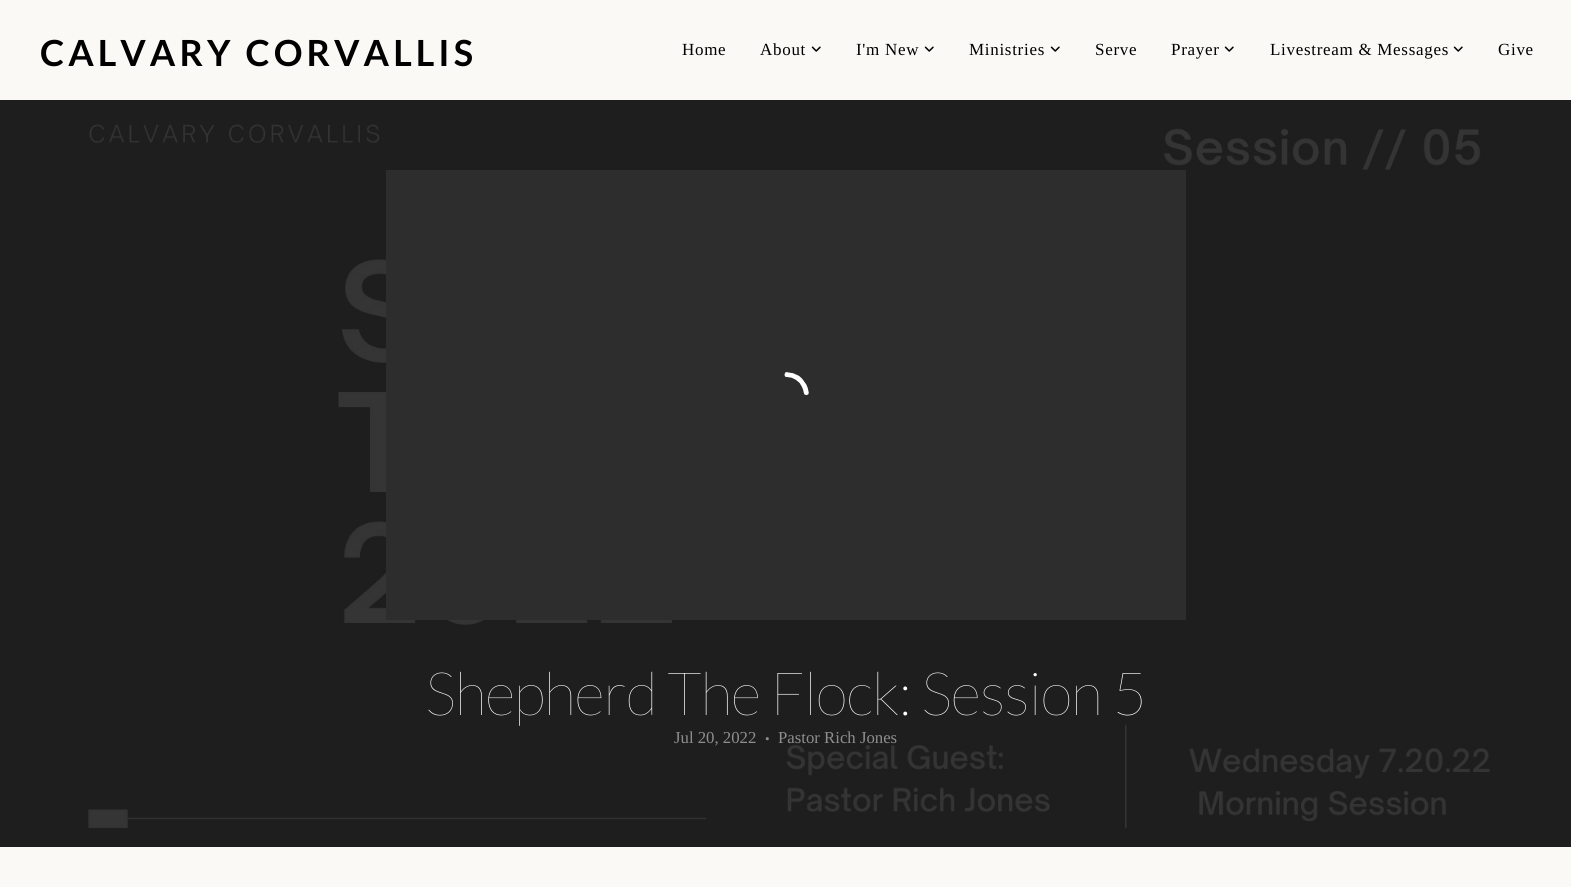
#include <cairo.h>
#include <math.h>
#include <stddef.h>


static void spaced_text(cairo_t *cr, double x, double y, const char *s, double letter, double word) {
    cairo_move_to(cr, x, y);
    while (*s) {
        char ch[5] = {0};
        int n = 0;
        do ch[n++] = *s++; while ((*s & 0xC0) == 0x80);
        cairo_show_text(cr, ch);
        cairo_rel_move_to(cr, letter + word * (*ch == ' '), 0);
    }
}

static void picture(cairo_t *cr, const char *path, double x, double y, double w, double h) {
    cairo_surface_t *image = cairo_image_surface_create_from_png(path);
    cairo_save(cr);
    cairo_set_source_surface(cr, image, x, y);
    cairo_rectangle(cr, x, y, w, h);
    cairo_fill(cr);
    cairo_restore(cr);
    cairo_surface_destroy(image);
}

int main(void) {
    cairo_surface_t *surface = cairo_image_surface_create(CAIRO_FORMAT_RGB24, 1571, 887);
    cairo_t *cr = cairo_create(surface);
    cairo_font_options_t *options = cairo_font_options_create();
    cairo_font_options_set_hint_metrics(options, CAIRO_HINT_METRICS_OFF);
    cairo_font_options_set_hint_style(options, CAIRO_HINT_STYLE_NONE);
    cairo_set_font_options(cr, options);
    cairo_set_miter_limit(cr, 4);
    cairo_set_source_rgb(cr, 0.98, 0.976, 0.961);
    cairo_paint(cr);
    cairo_select_font_face(cr, "Lato", CAIRO_FONT_SLANT_NORMAL, CAIRO_FONT_WEIGHT_BOLD);
    cairo_set_font_size(cr, 36);
    cairo_set_source_rgb(cr, 0, 0, 0);
    spaced_text(cr, 40, 66, "CALVARY CORVALLIS", 4, 0);
    cairo_select_font_face(cr, "Liberation Serif", CAIRO_FONT_SLANT_NORMAL, CAIRO_FONT_WEIGHT_NORMAL);
    cairo_set_font_size(cr, 17);
    spaced_text(cr, 682, 55, "Home", 0.7, 0);
    spaced_text(cr, 760, 55, "About", 0.7, 0);
    picture(cr, "img1.png", 811, 46, 10, 6);
    spaced_text(cr, 856, 55, "I'm New", 0.7, 0);
    picture(cr, "img1.png", 924, 46, 10, 6);
    spaced_text(cr, 969, 55, "Ministries", 0.7, 0);
    picture(cr, "img1.png", 1050, 46, 10, 6);
    spaced_text(cr, 1095, 55, "Serve", 0.7, 0);
    spaced_text(cr, 1171, 55, "Prayer", 0.7, 0);
    picture(cr, "img1.png", 1224, 46, 10, 6);
    spaced_text(cr, 1270, 55, "Livestream & Messages", 0.7, 0);
    picture(cr, "img1.png", 1453, 46, 10, 6);
    spaced_text(cr, 1498, 55, "Give", 0.7, 0);
    picture(cr, "img2.png", 0, 100, 1571, 747);
    picture(cr, "img3.png", 386, 170, 800, 450);
    cairo_select_font_face(cr, "Lato Thin", CAIRO_FONT_SLANT_NORMAL, CAIRO_FONT_WEIGHT_NORMAL);
    cairo_set_font_size(cr, 60);
    cairo_set_source_rgb(cr, 1, 1, 1);
    spaced_text(cr, 425, 715, "Shepherd The Flock: Session 5", -1.2, 0);
    cairo_select_font_face(cr, "Liberation Serif", CAIRO_FONT_SLANT_NORMAL, CAIRO_FONT_WEIGHT_NORMAL);
    cairo_set_font_size(cr, 16.75);
    cairo_set_source_rgb(cr, 0.557, 0.557, 0.557);
    cairo_move_to(cr, 674, 743);
    cairo_show_text(cr, "Jul 20, 2022");
    cairo_set_font_size(cr, 13);
    cairo_move_to(cr, 765, 743);
    cairo_show_text(cr, "•");
    cairo_set_font_size(cr, 16.75);
    cairo_move_to(cr, 778, 743);
    cairo_show_text(cr, "Pastor Rich Jones");
    cairo_surface_write_to_png(surface, "page.png");
    cairo_font_options_destroy(options);
    cairo_destroy(cr);
    cairo_surface_destroy(surface);
    return 0;
}
